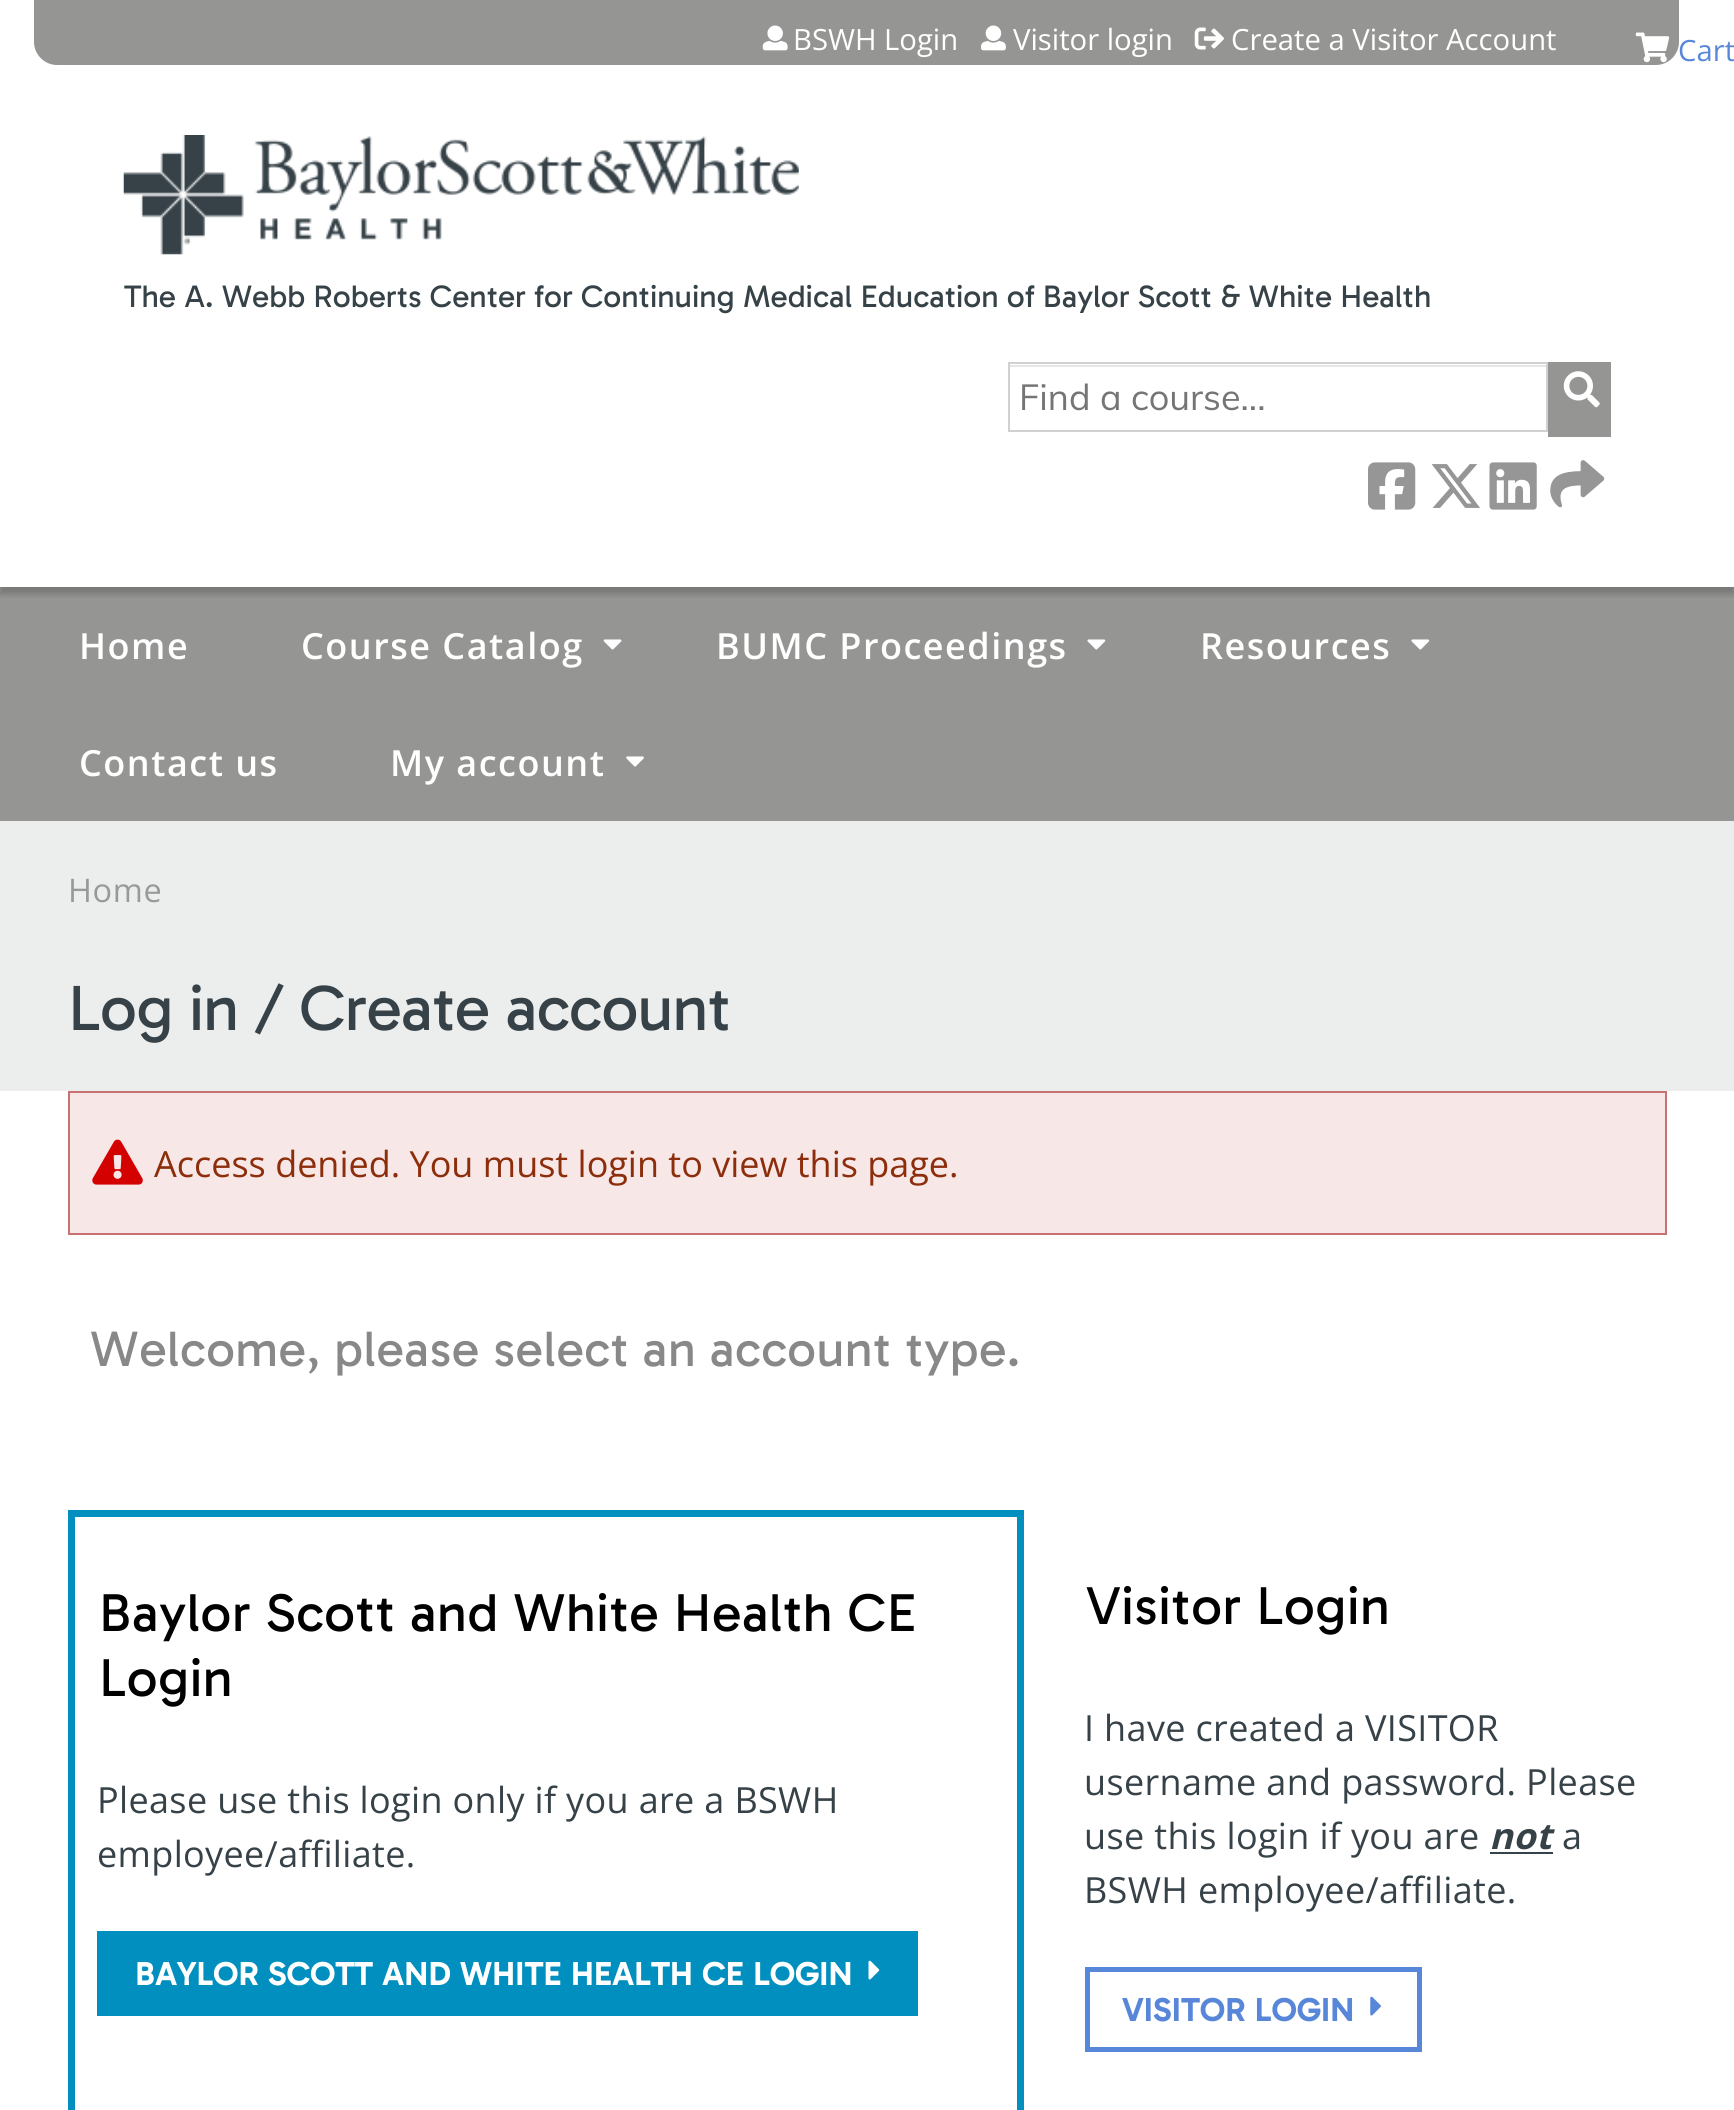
#include <cairo.h>
#include <math.h>
#include <stddef.h>


static void spaced_text(cairo_t *cr, double x, double y, const char *s, double letter, double word) {
    cairo_move_to(cr, x, y);
    while (*s) {
        char ch[5] = {0};
        int n = 0;
        do ch[n++] = *s++; while ((*s & 0xC0) == 0x80);
        cairo_show_text(cr, ch);
        cairo_rel_move_to(cr, letter + word * (*ch == ' '), 0);
    }
}

static void round_rect(cairo_t *cr, double x, double y, double w, double h, double r) {
    cairo_new_sub_path(cr);
    cairo_arc(cr, x + w - r, y + h - r, r, 0, M_PI / 2);
    cairo_arc(cr, x + r, y + h - r, r, M_PI / 2, M_PI);
    cairo_arc(cr, x + r, y + r, r, M_PI, 1.5 * M_PI);
    cairo_arc(cr, x + w - r, y + r, r, 1.5 * M_PI, 2 * M_PI);
    cairo_close_path(cr);
}

static void shadow(cairo_t *cr, double x, double y, double w, double h, double r, double blur, double alpha) {
    cairo_push_group_with_content(cr, CAIRO_CONTENT_ALPHA);
    cairo_set_operator(cr, CAIRO_OPERATOR_SOURCE);
    for (int i = 15; i >= -15 && fmin(w, h) + blur * i / 3 > 0; i -= 2) {
        double e = blur * i / 6;
        cairo_set_source_rgba(cr, 0, 0, 0, alpha * erfc((i - 1) / 8.5) / 2);
        round_rect(cr, x - e, y - e, w + 2 * e, h + 2 * e, fmax(0, fmin(r + e + blur * .6, fmin(w, h) / 2 + e)));
        cairo_fill(cr);
    }
    cairo_pattern_t *soft = cairo_pop_group(cr);
    cairo_mask(cr, soft);
    cairo_pattern_destroy(soft);
}

static void picture(cairo_t *cr, const char *path, double x, double y, double w, double h) {
    cairo_surface_t *image = cairo_image_surface_create_from_png(path);
    cairo_save(cr);
    cairo_set_source_surface(cr, image, x, y);
    cairo_rectangle(cr, x, y, w, h);
    cairo_fill(cr);
    cairo_restore(cr);
    cairo_surface_destroy(image);
}

int main(void) {
    cairo_surface_t *surface = cairo_image_surface_create(CAIRO_FORMAT_RGB24, 1734, 2110);
    cairo_t *cr = cairo_create(surface);
    cairo_font_options_t *options = cairo_font_options_create();
    cairo_font_options_set_hint_metrics(options, CAIRO_HINT_METRICS_OFF);
    cairo_font_options_set_hint_style(options, CAIRO_HINT_STYLE_NONE);
    cairo_set_font_options(cr, options);
    cairo_set_miter_limit(cr, 4);
    cairo_set_source_rgb(cr, 0.925, 0.929, 0.929);
    cairo_paint(cr);
    cairo_set_source_rgb(cr, 1, 1, 1);
    cairo_rectangle(cr, 0, 0, 1734, 587);
    cairo_fill(cr);
    cairo_set_source_rgb(cr, 0.584, 0.584, 0.576);
    cairo_rectangle(cr, 0, 587, 1734, 234);
    cairo_fill(cr);
    cairo_save(cr);
    cairo_rectangle(cr, 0, 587, 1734, 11);
    cairo_clip(cr);
    cairo_set_source_rgb(cr, 0, 0, 0);
    shadow(cr, 0, 7, 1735, 587, 0, 3.5, 0.2);
    cairo_restore(cr);
    picture(cr, "img1.png", 123, 135, 676, 120);
    cairo_new_path(cr);
    cairo_move_to(cr, 34, 0);
    cairo_line_to(cr, 1679, 0);
    cairo_line_to(cr, 1679, 42);
    cairo_curve_to(cr, 1679, 54.5, 1668.5, 65, 1656, 65);
    cairo_line_to(cr, 57, 65);
    cairo_curve_to(cr, 44.5, 65, 34, 54.5, 34, 42);
    cairo_close_path(cr);
    cairo_fill(cr);
    picture(cr, "img2.png", 762, 25, 26, 26);
    cairo_select_font_face(cr, "Open Sans", CAIRO_FONT_SLANT_NORMAL, CAIRO_FONT_WEIGHT_NORMAL);
    cairo_set_font_size(cr, 29.25);
    cairo_set_source_rgb(cr, 1, 1, 1);
    cairo_move_to(cr, 793, 50);
    cairo_show_text(cr, "BSWH Login");
    picture(cr, "img3.png", 981, 25, 25, 26);
    cairo_move_to(cr, 1013, 50);
    cairo_show_text(cr, "Visitor login");
    picture(cr, "img4.png", 1194, 27, 30, 23);
    cairo_move_to(cr, 1231, 50);
    cairo_show_text(cr, "Create a Visitor Account");
    picture(cr, "img5.png", 1635, 32, 35, 31);
    cairo_set_source_rgb(cr, 0.345, 0.529, 0.855);
    cairo_move_to(cr, 1678, 61);
    cairo_show_text(cr, "Cart");
    cairo_set_source_rgb(cr, 0.584, 0.584, 0.576);
    cairo_rectangle(cr, 1548, 362, 63, 75);
    cairo_fill(cr);
    cairo_set_source_rgb(cr, 0.902, 0.902, 0.902);
    cairo_rectangle(cr, 1010, 365, 536, 2);
    cairo_fill(cr);
    cairo_rectangle(cr, 1009, 363, 538, 68);
    cairo_set_source_rgb(cr, 0.82, 0.82, 0.82);
    cairo_stroke(cr);
    cairo_select_font_face(cr, "Muli", CAIRO_FONT_SLANT_NORMAL, CAIRO_FONT_WEIGHT_NORMAL);
    cairo_set_font_size(cr, 36);
    cairo_set_source_rgb(cr, 0.459, 0.459, 0.459);
    cairo_move_to(cr, 1019, 410);
    cairo_show_text(cr, "Find a course...");
    picture(cr, "img6.png", 1563, 371, 37, 37);
    picture(cr, "img7.png", 1368, 462, 48, 48);
    picture(cr, "img8.png", 1431, 464, 49, 44);
    picture(cr, "img9.png", 1489, 462, 48, 48);
    picture(cr, "img10.png", 1550, 460, 55, 48);
    cairo_select_font_face(cr, "Gabarito", CAIRO_FONT_SLANT_NORMAL, CAIRO_FONT_WEIGHT_NORMAL);
    cairo_set_font_size(cr, 31.5);
    cairo_set_source_rgb(cr, 0.212, 0.259, 0.282);
    cairo_move_to(cr, 124, 307);
    cairo_show_text(cr, "The A. Webb Roberts Center for Continuing Medical Education of Baylor Scott & White Health");
    cairo_select_font_face(cr, "Open Sans SemiBold", CAIRO_FONT_SLANT_NORMAL, CAIRO_FONT_WEIGHT_NORMAL);
    cairo_set_font_size(cr, 36);
    cairo_set_source_rgb(cr, 1, 1, 1);
    spaced_text(cr, 79, 659, "Home", 1.5, 0);
    spaced_text(cr, 301, 659, "Course Catalog", 1.5, 0);
    picture(cr, "img11.png", 603, 639, 19, 11);
    spaced_text(cr, 716, 659, "BUMC Proceedings", 1.5, 0);
    picture(cr, "img12.png", 1087, 639, 19, 11);
    spaced_text(cr, 1200, 659, "Resources", 1.5, 0);
    picture(cr, "img12.png", 1411, 639, 19, 11);
    spaced_text(cr, 79, 776, "Contact us", 1.5, 0);
    spaced_text(cr, 390, 776, "My account", 1.5, 0);
    picture(cr, "img13.png", 626, 756, 18, 11);
    cairo_select_font_face(cr, "Open Sans", CAIRO_FONT_SLANT_NORMAL, CAIRO_FONT_WEIGHT_NORMAL);
    cairo_set_font_size(cr, 32.5);
    cairo_set_source_rgb(cr, 0.6, 0.6, 0.6);
    spaced_text(cr, 68, 902, "Home", 0.65, 0);
    cairo_select_font_face(cr, "Gabarito", CAIRO_FONT_SLANT_NORMAL, CAIRO_FONT_WEIGHT_NORMAL);
    cairo_set_font_size(cr, 64.75);
    cairo_set_source_rgb(cr, 0.212, 0.259, 0.282);
    spaced_text(cr, 68, 1030, "Log in / Create account", -0.65, 0);
    cairo_set_source_rgb(cr, 1, 1, 1);
    cairo_rectangle(cr, 0, 1091, 1734, 1019);
    cairo_fill(cr);
    cairo_set_source_rgb(cr, 0.969, 0.906, 0.906);
    cairo_rectangle(cr, 69, 1092, 1597, 142);
    cairo_fill_preserve(cr);
    cairo_set_source_rgb(cr, 0.784, 0.443, 0.443);
    cairo_stroke(cr);
    picture(cr, "img14.png", 92, 1139, 51, 46);
    cairo_select_font_face(cr, "Open Sans", CAIRO_FONT_SLANT_NORMAL, CAIRO_FONT_WEIGHT_NORMAL);
    cairo_set_font_size(cr, 36);
    cairo_set_source_rgb(cr, 0.549, 0.18, 0.043);
    cairo_move_to(cr, 154, 1177);
    cairo_show_text(cr, "Access denied. You must login to view this page.");
    cairo_select_font_face(cr, "Gabarito", CAIRO_FONT_SLANT_NORMAL, CAIRO_FONT_WEIGHT_NORMAL);
    cairo_set_font_size(cr, 50.4);
    cairo_set_source_rgb(cr, 0.533, 0.533, 0.533);
    spaced_text(cr, 90, 1366, "Welcome, please select an account type.", 0.5, 0);
    cairo_rectangle(cr, 71.5, 1513.5, 949, 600);
    cairo_set_source_rgb(cr, 0, 0.561, 0.745);
    cairo_set_line_width(cr, 7);
    cairo_stroke(cr);
    cairo_set_font_size(cr, 54);
    cairo_set_source_rgb(cr, 0, 0, 0);
    spaced_text(cr, 99, 1631, "Baylor Scott and White Health CE", 0.55, 0);
    spaced_text(cr, 99, 1696, "Login", 0.55, 0);
    cairo_select_font_face(cr, "Open Sans", CAIRO_FONT_SLANT_NORMAL, CAIRO_FONT_WEIGHT_NORMAL);
    cairo_set_font_size(cr, 36);
    cairo_set_source_rgb(cr, 0.212, 0.259, 0.282);
    spaced_text(cr, 97, 1813, "Please use this login only if you are a BSWH", 0.35, 0);
    spaced_text(cr, 97, 1867, "employee/affiliate.", 0.35, 0);
    cairo_set_source_rgb(cr, 0, 0.561, 0.745);
    cairo_rectangle(cr, 97, 1931, 821, 85);
    cairo_fill(cr);
    cairo_select_font_face(cr, "Gabarito", CAIRO_FONT_SLANT_NORMAL, CAIRO_FONT_WEIGHT_BOLD);
    cairo_set_font_size(cr, 32.4);
    cairo_set_source_rgb(cr, 1, 1, 1);
    spaced_text(cr, 135, 1985, "BAYLOR SCOTT AND WHITE HEALTH CE LOGIN", 0.65, 0);
    picture(cr, "img15.png", 868, 1960, 12, 20);
    cairo_select_font_face(cr, "Gabarito", CAIRO_FONT_SLANT_NORMAL, CAIRO_FONT_WEIGHT_NORMAL);
    cairo_set_font_size(cr, 54);
    cairo_set_source_rgb(cr, 0, 0, 0);
    spaced_text(cr, 1086, 1624, "Visitor Login", 0.55, 0);
    cairo_select_font_face(cr, "Open Sans", CAIRO_FONT_SLANT_NORMAL, CAIRO_FONT_WEIGHT_NORMAL);
    cairo_set_font_size(cr, 36);
    cairo_set_source_rgb(cr, 0.212, 0.259, 0.282);
    spaced_text(cr, 1084, 1741, "I have created a VISITOR", 0.35, 0);
    spaced_text(cr, 1084, 1795, "username and password. Please", 0.35, 0);
    spaced_text(cr, 1084, 1849, "use this login if you are", 0.35, 0);
    cairo_select_font_face(cr, "Open Sans", CAIRO_FONT_SLANT_ITALIC, CAIRO_FONT_WEIGHT_BOLD);
    spaced_text(cr, 1489, 1849, "not", 0.35, 0);
    cairo_rectangle(cr, 1490, 1852, 63, 2);
    cairo_fill(cr);
    cairo_select_font_face(cr, "Open Sans", CAIRO_FONT_SLANT_NORMAL, CAIRO_FONT_WEIGHT_NORMAL);
    spaced_text(cr, 1562, 1849, "a", 0.35, 0);
    spaced_text(cr, 1084, 1903, "BSWH employee/affiliate.", 0.35, 0);
    cairo_rectangle(cr, 1087.5, 1969.5, 332, 80);
    cairo_set_source_rgb(cr, 0.345, 0.529, 0.855);
    cairo_set_line_width(cr, 5);
    cairo_stroke(cr);
    cairo_select_font_face(cr, "Gabarito", CAIRO_FONT_SLANT_NORMAL, CAIRO_FONT_WEIGHT_BOLD);
    cairo_set_font_size(cr, 32.4);
    spaced_text(cr, 1122, 2021, "VISITOR LOGIN", 0.65, 0);
    picture(cr, "img16.png", 1370, 1996, 11, 20);
    cairo_surface_write_to_png(surface, "page.png");
    cairo_font_options_destroy(options);
    cairo_destroy(cr);
    cairo_surface_destroy(surface);
    return 0;
}
